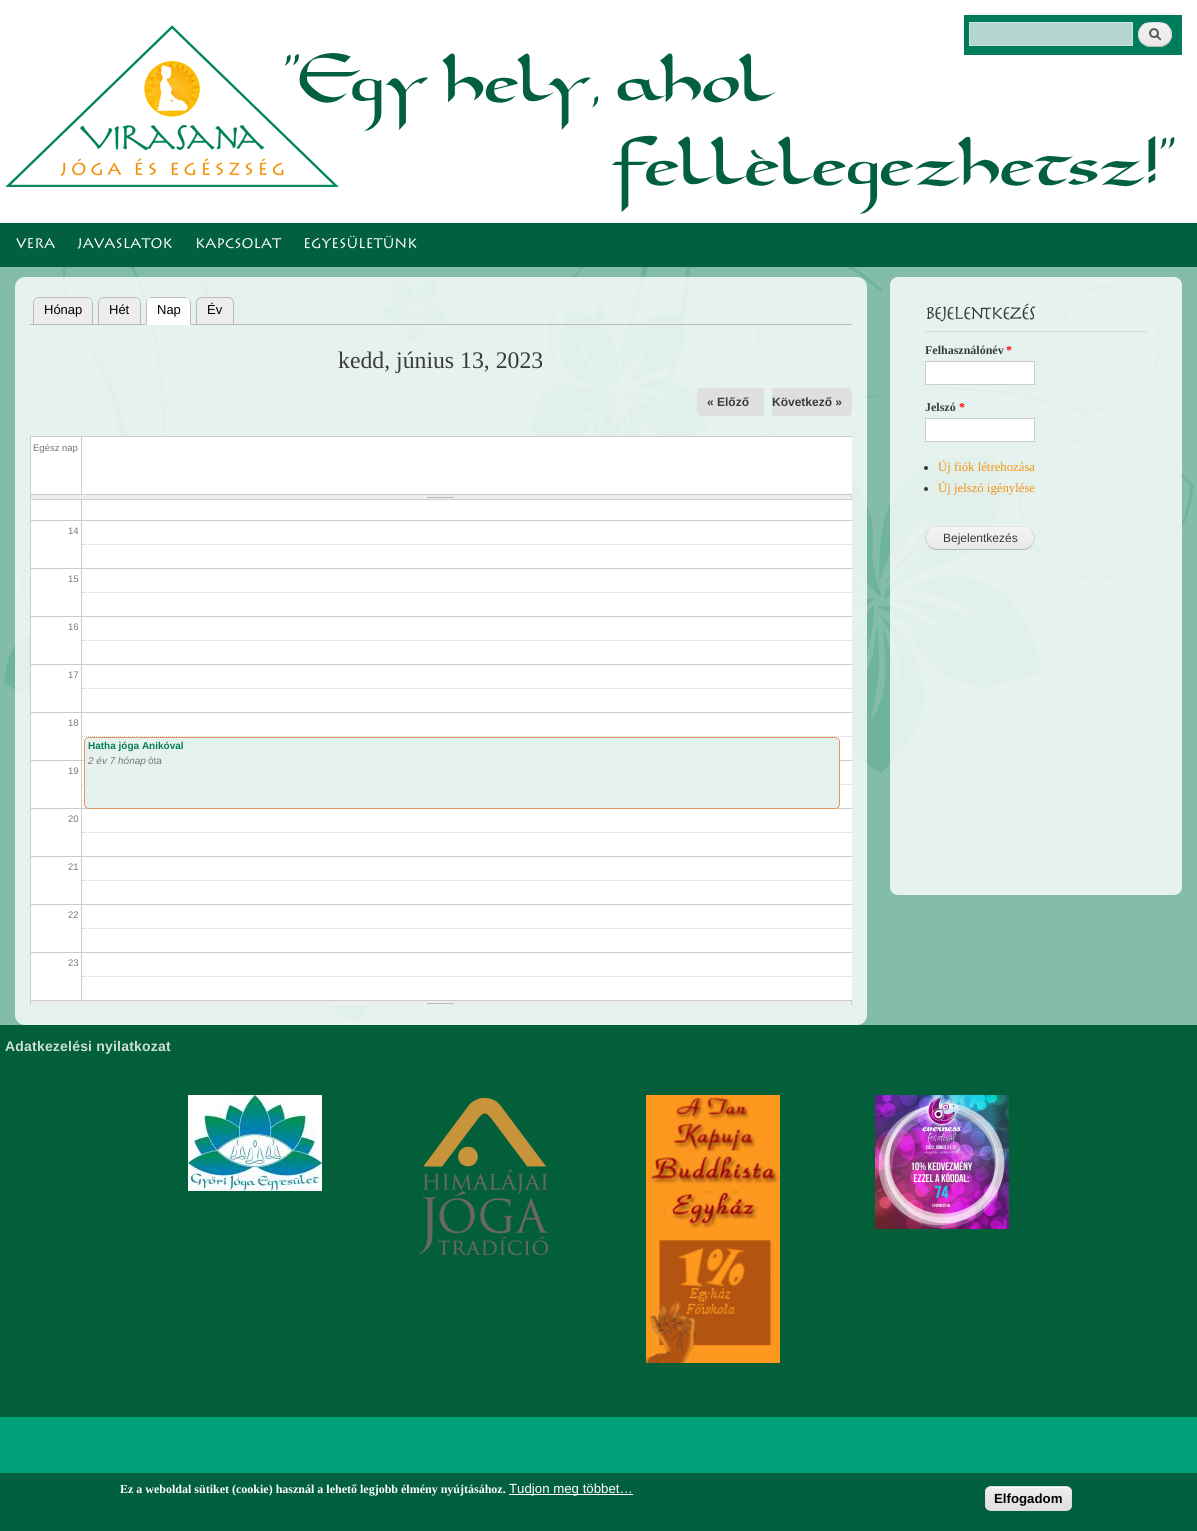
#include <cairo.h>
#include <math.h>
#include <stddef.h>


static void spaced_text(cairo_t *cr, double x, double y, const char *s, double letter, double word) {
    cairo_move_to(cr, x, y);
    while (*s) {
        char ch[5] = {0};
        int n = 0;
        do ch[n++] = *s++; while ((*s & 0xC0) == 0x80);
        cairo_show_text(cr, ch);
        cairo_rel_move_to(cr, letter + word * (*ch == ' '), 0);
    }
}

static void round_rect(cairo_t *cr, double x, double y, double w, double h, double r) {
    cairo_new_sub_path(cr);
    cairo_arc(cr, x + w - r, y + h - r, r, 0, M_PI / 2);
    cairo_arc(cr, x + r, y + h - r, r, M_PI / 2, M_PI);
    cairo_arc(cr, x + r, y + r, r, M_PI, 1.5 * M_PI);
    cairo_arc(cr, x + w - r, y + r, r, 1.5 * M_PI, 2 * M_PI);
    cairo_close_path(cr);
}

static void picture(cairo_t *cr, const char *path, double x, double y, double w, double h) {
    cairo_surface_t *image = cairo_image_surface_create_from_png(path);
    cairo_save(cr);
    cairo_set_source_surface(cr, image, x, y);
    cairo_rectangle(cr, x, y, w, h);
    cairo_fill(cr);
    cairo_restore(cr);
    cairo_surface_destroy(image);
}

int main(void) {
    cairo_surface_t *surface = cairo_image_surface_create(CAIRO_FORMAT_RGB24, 1197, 1531);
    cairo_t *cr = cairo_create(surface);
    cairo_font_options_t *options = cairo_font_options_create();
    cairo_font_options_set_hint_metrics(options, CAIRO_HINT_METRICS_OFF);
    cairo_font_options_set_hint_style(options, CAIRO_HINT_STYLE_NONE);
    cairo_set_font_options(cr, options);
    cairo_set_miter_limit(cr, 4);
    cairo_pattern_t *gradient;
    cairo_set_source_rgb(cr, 0, 0.627, 0.471);
    cairo_paint(cr);
    cairo_set_source_rgb(cr, 1, 1, 1);
    cairo_rectangle(cr, 0, 267, 1197, 758);
    cairo_fill(cr);
    picture(cr, "img1.png", 531, 267, 664, 506);
    cairo_rectangle(cr, 0, 0, 1197, 223);
    cairo_fill(cr);
    picture(cr, "img2.png", 284, 53, 891, 161);
    picture(cr, "img3.png", 5, 25, 334, 162);
    cairo_set_source_rgb(cr, 0, 0.482, 0.357);
    cairo_rectangle(cr, 964, 15, 218, 40);
    cairo_fill(cr);
    cairo_set_source_rgb(cr, 0.702, 0.843, 0.808);
    cairo_rectangle(cr, 969.5, 22.5, 163, 23);
    cairo_fill_preserve(cr);
    cairo_set_source_rgb(cr, 0.792, 0.89, 0.867);
    cairo_set_line_width(cr, 1);
    cairo_stroke(cr);
    picture(cr, "img4.png", 1138, 23, 34, 24);
    cairo_new_path(cr);
    cairo_move_to(cr, 1142, 26);
    cairo_curve_to(cr, 1145.5, 22.5, 1150, 22.5, 1155, 22.5);
    cairo_curve_to(cr, 1160, 22.5, 1164.5, 22.5, 1168, 26);
    cairo_set_source_rgb(cr, 0.894, 0.894, 0.894);
    cairo_stroke(cr);
    cairo_new_path(cr);
    cairo_move_to(cr, 1168, 26);
    cairo_curve_to(cr, 1172.5, 30.5, 1172.5, 38.5, 1168, 43);
    cairo_set_source_rgb(cr, 0.824, 0.824, 0.824);
    cairo_stroke(cr);
    cairo_new_path(cr);
    cairo_move_to(cr, 1168, 43);
    cairo_curve_to(cr, 1164.5, 46.5, 1160, 46.5, 1155, 46.5);
    cairo_curve_to(cr, 1150, 46.5, 1145.5, 46.5, 1142, 43);
    cairo_set_source_rgb(cr, 0.706, 0.706, 0.706);
    cairo_stroke(cr);
    cairo_new_path(cr);
    cairo_move_to(cr, 1142, 43);
    cairo_curve_to(cr, 1137.5, 38.5, 1137.5, 30.5, 1142, 26);
    cairo_set_source_rgb(cr, 0.824, 0.824, 0.824);
    cairo_stroke(cr);
    cairo_set_source_rgb(cr, 0.008, 0.376, 0.247);
    cairo_rectangle(cr, 0, 223, 1197, 44);
    cairo_fill(cr);
    picture(cr, "img5.png", 16, 237, 39, 12);
    picture(cr, "img6.png", 77, 237, 95, 12);
    picture(cr, "img7.png", 197, 237, 85, 12);
    picture(cr, "img8.png", 305, 235, 112, 14);
    picture(cr, "img9.png", 4, 267, 443, 756);
    cairo_set_source_rgba(cr, 0.035, 0.49, 0.322, 0.5);
    cairo_rectangle(cr, 0, 267, 1197, 758);
    cairo_fill(cr);
    cairo_set_source_rgba(cr, 1, 1, 1, 0.8);
    round_rect(cr, 15, 277, 852, 748, 10);
    cairo_fill(cr);
    cairo_set_source_rgb(cr, 0.733, 0.733, 0.733);
    cairo_rectangle(cr, 30, 324, 822, 1);
    cairo_fill(cr);
    cairo_set_source_rgb(cr, 0.929, 0.929, 0.929);
    cairo_new_path(cr);
    cairo_move_to(cr, 39, 297);
    cairo_line_to(cr, 87, 297);
    cairo_curve_to(cr, 90.5, 297, 93, 299.5, 93, 303);
    cairo_line_to(cr, 93, 324);
    cairo_line_to(cr, 33, 324);
    cairo_line_to(cr, 33, 303);
    cairo_curve_to(cr, 33, 299.5, 35.5, 297, 39, 297);
    cairo_close_path(cr);
    cairo_fill(cr);
    cairo_set_source_rgb(cr, 0.733, 0.733, 0.733);
    cairo_set_fill_rule(cr, CAIRO_FILL_RULE_EVEN_ODD);
    cairo_new_path(cr);
    cairo_move_to(cr, 39, 297);
    cairo_line_to(cr, 87, 297);
    cairo_curve_to(cr, 90, 297, 93, 300, 93, 303);
    cairo_line_to(cr, 93, 324);
    cairo_line_to(cr, 33, 324);
    cairo_line_to(cr, 33, 303);
    cairo_curve_to(cr, 33, 300, 36, 297, 39, 297);
    cairo_close_path(cr);
    cairo_move_to(cr, 39, 298);
    cairo_line_to(cr, 87, 298);
    cairo_curve_to(cr, 90, 298, 92, 300, 92, 303);
    cairo_line_to(cr, 92, 324);
    cairo_line_to(cr, 34, 324);
    cairo_line_to(cr, 34, 303);
    cairo_curve_to(cr, 34, 300, 36, 298, 39, 298);
    cairo_close_path(cr);
    cairo_fill(cr);
    cairo_select_font_face(cr, "Liberation Sans", CAIRO_FONT_SLANT_NORMAL, CAIRO_FONT_WEIGHT_NORMAL);
    cairo_set_font_size(cr, 13);
    cairo_set_source_rgb(cr, 0, 0, 0);
    cairo_move_to(cr, 44, 314);
    cairo_show_text(cr, "Hónap");
    cairo_set_source_rgb(cr, 0.929, 0.929, 0.929);
    cairo_new_path(cr);
    cairo_move_to(cr, 104, 297);
    cairo_line_to(cr, 135, 297);
    cairo_curve_to(cr, 138.5, 297, 141, 299.5, 141, 303);
    cairo_line_to(cr, 141, 324);
    cairo_line_to(cr, 98, 324);
    cairo_line_to(cr, 98, 303);
    cairo_curve_to(cr, 98, 299.5, 100.5, 297, 104, 297);
    cairo_close_path(cr);
    cairo_fill(cr);
    cairo_set_source_rgb(cr, 0.733, 0.733, 0.733);
    cairo_new_path(cr);
    cairo_move_to(cr, 104, 297);
    cairo_line_to(cr, 135, 297);
    cairo_curve_to(cr, 138, 297, 141, 300, 141, 303);
    cairo_line_to(cr, 141, 324);
    cairo_line_to(cr, 98, 324);
    cairo_line_to(cr, 98, 303);
    cairo_curve_to(cr, 98, 300, 101, 297, 104, 297);
    cairo_close_path(cr);
    cairo_move_to(cr, 104, 298);
    cairo_line_to(cr, 135, 298);
    cairo_curve_to(cr, 138, 298, 140, 300, 140, 303);
    cairo_line_to(cr, 140, 324);
    cairo_line_to(cr, 99, 324);
    cairo_line_to(cr, 99, 303);
    cairo_curve_to(cr, 99, 300, 101, 298, 104, 298);
    cairo_close_path(cr);
    cairo_fill(cr);
    cairo_set_source_rgb(cr, 0, 0, 0);
    cairo_move_to(cr, 109, 314);
    cairo_show_text(cr, "Hét");
    cairo_set_source_rgb(cr, 1, 1, 1);
    cairo_new_path(cr);
    cairo_move_to(cr, 152, 297);
    cairo_line_to(cr, 185, 297);
    cairo_curve_to(cr, 188.5, 297, 191, 299.5, 191, 303);
    cairo_line_to(cr, 191, 325);
    cairo_line_to(cr, 146, 325);
    cairo_line_to(cr, 146, 303);
    cairo_curve_to(cr, 146, 299.5, 148.5, 297, 152, 297);
    cairo_close_path(cr);
    cairo_fill(cr);
    cairo_set_source_rgb(cr, 0.733, 0.733, 0.733);
    cairo_set_fill_rule(cr, CAIRO_FILL_RULE_WINDING);
    cairo_new_path(cr);
    cairo_move_to(cr, 152, 297);
    cairo_curve_to(cr, 150, 297, 149, 298, 148, 299);
    cairo_curve_to(cr, 149, 298, 150, 298, 152, 298);
    cairo_line_to(cr, 185, 298);
    cairo_curve_to(cr, 186, 298, 188, 298, 189, 299);
    cairo_curve_to(cr, 188, 298, 186, 297, 185, 297);
    cairo_close_path(cr);
    cairo_move_to(cr, 191, 325);
    cairo_line_to(cr, 191, 303);
    cairo_curve_to(cr, 191, 301.5, 190, 300, 189, 299);
    cairo_line_to(cr, 188.5, 299.5);
    cairo_curve_to(cr, 189.5, 300, 190, 301.5, 190, 303);
    cairo_line_to(cr, 190, 324);
    cairo_close_path(cr);
    cairo_fill(cr);
    cairo_set_source_rgb(cr, 1, 1, 1);
    cairo_new_path(cr);
    cairo_move_to(cr, 191, 325);
    cairo_line_to(cr, 190, 324);
    cairo_line_to(cr, 147, 324);
    cairo_line_to(cr, 146, 325);
    cairo_close_path(cr);
    cairo_fill(cr);
    cairo_set_source_rgb(cr, 0.733, 0.733, 0.733);
    cairo_new_path(cr);
    cairo_move_to(cr, 146, 325);
    cairo_line_to(cr, 147, 324);
    cairo_line_to(cr, 147, 303);
    cairo_curve_to(cr, 147, 301.5, 147.5, 300, 148.5, 299.5);
    cairo_line_to(cr, 148, 299);
    cairo_curve_to(cr, 147, 300, 146, 301.5, 146, 303);
    cairo_close_path(cr);
    cairo_fill(cr);
    cairo_set_source_rgb(cr, 0, 0, 0);
    cairo_move_to(cr, 157, 314);
    cairo_show_text(cr, "Nap");
    cairo_set_source_rgb(cr, 0.929, 0.929, 0.929);
    cairo_new_path(cr);
    cairo_move_to(cr, 202, 297);
    cairo_line_to(cr, 228, 297);
    cairo_curve_to(cr, 231.5, 297, 234, 299.5, 234, 303);
    cairo_line_to(cr, 234, 324);
    cairo_line_to(cr, 196, 324);
    cairo_line_to(cr, 196, 303);
    cairo_curve_to(cr, 196, 299.5, 198.5, 297, 202, 297);
    cairo_close_path(cr);
    cairo_fill(cr);
    cairo_set_source_rgb(cr, 0.733, 0.733, 0.733);
    cairo_set_fill_rule(cr, CAIRO_FILL_RULE_EVEN_ODD);
    cairo_new_path(cr);
    cairo_move_to(cr, 202, 297);
    cairo_line_to(cr, 228, 297);
    cairo_curve_to(cr, 231.5, 297, 234, 299.5, 234, 303);
    cairo_line_to(cr, 234, 324);
    cairo_line_to(cr, 196, 324);
    cairo_line_to(cr, 196, 303);
    cairo_curve_to(cr, 196, 299.5, 198.5, 297, 202, 297);
    cairo_close_path(cr);
    cairo_move_to(cr, 202, 298);
    cairo_line_to(cr, 228, 298);
    cairo_curve_to(cr, 231, 298, 233, 300, 233, 303);
    cairo_line_to(cr, 233, 324);
    cairo_line_to(cr, 197, 324);
    cairo_line_to(cr, 197, 303);
    cairo_curve_to(cr, 197, 300, 199, 298, 202, 298);
    cairo_close_path(cr);
    cairo_fill(cr);
    cairo_set_source_rgb(cr, 0, 0, 0);
    cairo_move_to(cr, 207, 314);
    cairo_show_text(cr, "Év");
    cairo_select_font_face(cr, "Liberation Serif", CAIRO_FONT_SLANT_NORMAL, CAIRO_FONT_WEIGHT_NORMAL);
    cairo_set_font_size(cr, 23.75);
    cairo_set_source_rgb(cr, 0.231, 0.231, 0.231);
    cairo_move_to(cr, 338, 368);
    cairo_show_text(cr, "kedd, június 13, 2023");
    cairo_set_source_rgb(cr, 0.875, 0.875, 0.875);
    cairo_new_path(cr);
    cairo_move_to(cr, 702, 388);
    cairo_line_to(cr, 764, 388);
    cairo_line_to(cr, 764, 416);
    cairo_line_to(cr, 702, 416);
    cairo_curve_to(cr, 699, 416, 697, 414, 697, 411);
    cairo_line_to(cr, 697, 393);
    cairo_curve_to(cr, 697, 390, 699, 388, 702, 388);
    cairo_close_path(cr);
    cairo_fill(cr);
    cairo_select_font_face(cr, "Liberation Sans", CAIRO_FONT_SLANT_NORMAL, CAIRO_FONT_WEIGHT_BOLD);
    cairo_set_font_size(cr, 12);
    cairo_set_source_rgb(cr, 0.231, 0.231, 0.231);
    cairo_move_to(cr, 707, 406);
    cairo_show_text(cr, "« Előző");
    cairo_set_source_rgb(cr, 0.875, 0.875, 0.875);
    cairo_new_path(cr);
    cairo_move_to(cr, 772, 388);
    cairo_line_to(cr, 847, 388);
    cairo_curve_to(cr, 850, 388, 852, 390, 852, 393);
    cairo_line_to(cr, 852, 411);
    cairo_curve_to(cr, 852, 414, 850, 416, 847, 416);
    cairo_line_to(cr, 772, 416);
    cairo_close_path(cr);
    cairo_fill(cr);
    cairo_set_source_rgb(cr, 0.231, 0.231, 0.231);
    cairo_move_to(cr, 772, 406);
    cairo_show_text(cr, "Következő »");
    cairo_set_source_rgb(cr, 1, 1, 1);
    cairo_rectangle(cr, 31, 437, 821, 57);
    cairo_fill(cr);
    cairo_set_source_rgb(cr, 0.8, 0.8, 0.8);
    cairo_rectangle(cr, 30, 436, 822, 1);
    cairo_fill(cr);
    cairo_rectangle(cr, 30, 494, 822, 1);
    cairo_fill(cr);
    cairo_rectangle(cr, 30, 436, 1, 59);
    cairo_fill(cr);
    cairo_select_font_face(cr, "Liberation Sans", CAIRO_FONT_SLANT_NORMAL, CAIRO_FONT_WEIGHT_NORMAL);
    cairo_set_font_size(cr, 9.5);
    cairo_set_source_rgb(cr, 0.467, 0.467, 0.467);
    cairo_move_to(cr, 33, 451);
    cairo_show_text(cr, "Egész nap");
    cairo_set_source_rgb(cr, 0.8, 0.8, 0.8);
    cairo_rectangle(cr, 81, 437, 1, 57);
    cairo_fill(cr);
    cairo_set_source_rgb(cr, 0.933, 0.933, 0.933);
    cairo_rectangle(cr, 30, 495, 822, 4);
    cairo_fill(cr);
    cairo_set_source_rgb(cr, 0.8, 0.8, 0.8);
    cairo_rectangle(cr, 851, 495, 1, 4);
    cairo_fill(cr);
    cairo_rectangle(cr, 30, 495, 1, 4);
    cairo_fill(cr);
    cairo_set_source_rgb(cr, 0.733, 0.733, 0.733);
    cairo_rectangle(cr, 427, 497, 27, 1);
    cairo_fill(cr);
    cairo_set_source_rgb(cr, 1, 1, 1);
    cairo_rectangle(cr, 31, 500, 821, 500);
    cairo_fill(cr);
    cairo_set_source_rgb(cr, 0.8, 0.8, 0.8);
    cairo_rectangle(cr, 30, 499, 822, 1);
    cairo_fill(cr);
    cairo_rectangle(cr, 30, 1000, 822, 1);
    cairo_fill(cr);
    cairo_rectangle(cr, 30, 499, 1, 502);
    cairo_fill(cr);
    cairo_rectangle(cr, 31, 520, 50, 1);
    cairo_fill(cr);
    cairo_set_source_rgb(cr, 0.467, 0.467, 0.467);
    cairo_move_to(cr, 68, 534);
    cairo_show_text(cr, "14");
    cairo_set_source_rgb(cr, 0.8, 0.8, 0.8);
    cairo_rectangle(cr, 31, 568, 50, 1);
    cairo_fill(cr);
    cairo_set_source_rgb(cr, 0.467, 0.467, 0.467);
    cairo_move_to(cr, 68, 582);
    cairo_show_text(cr, "15");
    cairo_set_source_rgb(cr, 0.8, 0.8, 0.8);
    cairo_rectangle(cr, 31, 616, 50, 1);
    cairo_fill(cr);
    cairo_set_source_rgb(cr, 0.467, 0.467, 0.467);
    cairo_move_to(cr, 68, 630);
    cairo_show_text(cr, "16");
    cairo_set_source_rgb(cr, 0.8, 0.8, 0.8);
    cairo_rectangle(cr, 31, 664, 50, 1);
    cairo_fill(cr);
    cairo_set_source_rgb(cr, 0.467, 0.467, 0.467);
    cairo_move_to(cr, 68, 678);
    cairo_show_text(cr, "17");
    cairo_set_source_rgb(cr, 0.8, 0.8, 0.8);
    cairo_rectangle(cr, 31, 712, 50, 1);
    cairo_fill(cr);
    cairo_set_source_rgb(cr, 0.467, 0.467, 0.467);
    cairo_move_to(cr, 68, 726);
    cairo_show_text(cr, "18");
    cairo_set_source_rgb(cr, 0.8, 0.8, 0.8);
    cairo_rectangle(cr, 31, 760, 50, 1);
    cairo_fill(cr);
    cairo_set_source_rgb(cr, 0.467, 0.467, 0.467);
    cairo_move_to(cr, 68, 774);
    cairo_show_text(cr, "19");
    cairo_set_source_rgb(cr, 0.8, 0.8, 0.8);
    cairo_rectangle(cr, 31, 808, 50, 1);
    cairo_fill(cr);
    cairo_set_source_rgb(cr, 0.467, 0.467, 0.467);
    cairo_move_to(cr, 68, 822);
    cairo_show_text(cr, "20");
    cairo_set_source_rgb(cr, 0.8, 0.8, 0.8);
    cairo_rectangle(cr, 31, 856, 50, 1);
    cairo_fill(cr);
    cairo_set_source_rgb(cr, 0.467, 0.467, 0.467);
    cairo_move_to(cr, 68, 870);
    cairo_show_text(cr, "21");
    cairo_set_source_rgb(cr, 0.8, 0.8, 0.8);
    cairo_rectangle(cr, 31, 904, 50, 1);
    cairo_fill(cr);
    cairo_set_source_rgb(cr, 0.467, 0.467, 0.467);
    cairo_move_to(cr, 68, 918);
    cairo_show_text(cr, "22");
    cairo_set_source_rgb(cr, 0.8, 0.8, 0.8);
    cairo_rectangle(cr, 31, 952, 50, 1);
    cairo_fill(cr);
    cairo_set_source_rgb(cr, 0.467, 0.467, 0.467);
    cairo_move_to(cr, 68, 966);
    cairo_show_text(cr, "23");
    cairo_set_source_rgb(cr, 0.8, 0.8, 0.8);
    cairo_rectangle(cr, 81, 500, 1, 500);
    cairo_fill(cr);
    cairo_rectangle(cr, 82, 520, 770, 1);
    cairo_fill(cr);
    cairo_new_path(cr);
    cairo_move_to(cr, 82, 544.5);
    cairo_line_to(cr, 852, 544.5);
    cairo_set_dash(cr, (double[]){1, 1}, 2, 0);
    cairo_stroke(cr);
    cairo_rectangle(cr, 82, 568, 770, 1);
    cairo_fill(cr);
    cairo_new_path(cr);
    cairo_move_to(cr, 82, 592.5);
    cairo_line_to(cr, 852, 592.5);
    cairo_stroke(cr);
    cairo_rectangle(cr, 82, 616, 770, 1);
    cairo_fill(cr);
    cairo_new_path(cr);
    cairo_move_to(cr, 82, 640.5);
    cairo_line_to(cr, 852, 640.5);
    cairo_stroke(cr);
    cairo_rectangle(cr, 82, 664, 770, 1);
    cairo_fill(cr);
    cairo_new_path(cr);
    cairo_move_to(cr, 82, 688.5);
    cairo_line_to(cr, 852, 688.5);
    cairo_stroke(cr);
    cairo_rectangle(cr, 82, 712, 770, 1);
    cairo_fill(cr);
    cairo_new_path(cr);
    cairo_move_to(cr, 82, 736.5);
    cairo_line_to(cr, 852, 736.5);
    cairo_stroke(cr);
    cairo_rectangle(cr, 82, 760, 770, 1);
    cairo_fill(cr);
    cairo_new_path(cr);
    cairo_move_to(cr, 82, 784.5);
    cairo_line_to(cr, 852, 784.5);
    cairo_stroke(cr);
    cairo_rectangle(cr, 82, 808, 770, 1);
    cairo_fill(cr);
    cairo_set_source_rgb(cr, 0.902, 0.949, 0.933);
    round_rect(cr, 84.5, 737.5, 755, 71, 4.5);
    cairo_fill_preserve(cr);
    cairo_set_source_rgb(cr, 0.89, 0.576, 0.392);
    cairo_set_dash(cr, NULL, 0, 0);
    cairo_stroke(cr);
    cairo_set_source_rgb(cr, 0.902, 0.949, 0.933);
    cairo_new_path(cr);
    cairo_move_to(cr, 89, 738);
    cairo_line_to(cr, 835, 738);
    cairo_curve_to(cr, 837, 738, 839, 740, 839, 742);
    cairo_line_to(cr, 839, 753);
    cairo_line_to(cr, 85, 753);
    cairo_line_to(cr, 85, 742);
    cairo_curve_to(cr, 85, 740, 87, 738, 89, 738);
    cairo_close_path(cr);
    cairo_fill(cr);
    cairo_select_font_face(cr, "Liberation Sans", CAIRO_FONT_SLANT_NORMAL, CAIRO_FONT_WEIGHT_BOLD);
    cairo_set_font_size(cr, 10);
    cairo_set_source_rgb(cr, 0.035, 0.49, 0.322);
    cairo_move_to(cr, 88, 749);
    cairo_show_text(cr, "Hatha jóga Anikóval");
    cairo_select_font_face(cr, "Liberation Sans", CAIRO_FONT_SLANT_ITALIC, CAIRO_FONT_WEIGHT_NORMAL);
    cairo_set_source_rgb(cr, 0.467, 0.467, 0.467);
    cairo_move_to(cr, 88, 764);
    cairo_show_text(cr, "2 év 7 hónap");
    cairo_select_font_face(cr, "Liberation Sans", CAIRO_FONT_SLANT_NORMAL, CAIRO_FONT_WEIGHT_NORMAL);
    cairo_move_to(cr, 148, 764);
    cairo_show_text(cr, "óta");
    cairo_new_path(cr);
    cairo_move_to(cr, 82, 832.5);
    cairo_line_to(cr, 852, 832.5);
    cairo_set_source_rgb(cr, 0.8, 0.8, 0.8);
    cairo_set_dash(cr, (double[]){1, 1}, 2, 0);
    cairo_stroke(cr);
    cairo_rectangle(cr, 82, 856, 770, 1);
    cairo_fill(cr);
    cairo_new_path(cr);
    cairo_move_to(cr, 82, 880.5);
    cairo_line_to(cr, 852, 880.5);
    cairo_stroke(cr);
    cairo_rectangle(cr, 82, 904, 770, 1);
    cairo_fill(cr);
    cairo_new_path(cr);
    cairo_move_to(cr, 82, 928.5);
    cairo_line_to(cr, 852, 928.5);
    cairo_stroke(cr);
    cairo_rectangle(cr, 82, 952, 770, 1);
    cairo_fill(cr);
    cairo_new_path(cr);
    cairo_move_to(cr, 82, 976.5);
    cairo_line_to(cr, 852, 976.5);
    cairo_stroke(cr);
    cairo_set_source_rgb(cr, 0.933, 0.933, 0.933);
    cairo_rectangle(cr, 30, 1001, 822, 4);
    cairo_fill(cr);
    cairo_set_source_rgb(cr, 0.8, 0.8, 0.8);
    cairo_rectangle(cr, 851, 1001, 1, 4);
    cairo_fill(cr);
    cairo_rectangle(cr, 30, 1001, 1, 4);
    cairo_fill(cr);
    cairo_set_source_rgb(cr, 0.733, 0.733, 0.733);
    cairo_rectangle(cr, 427, 1003, 27, 1);
    cairo_fill(cr);
    cairo_set_source_rgba(cr, 1, 1, 1, 0.8);
    round_rect(cr, 890, 277, 292, 618, 8);
    cairo_fill(cr);
    cairo_set_source_rgb(cr, 0.839, 0.839, 0.839);
    cairo_rectangle(cr, 925, 331, 222, 1);
    cairo_fill(cr);
    cairo_select_font_face(cr, "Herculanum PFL", CAIRO_FONT_SLANT_NORMAL, CAIRO_FONT_WEIGHT_NORMAL);
    cairo_set_font_size(cr, 20);
    cairo_set_source_rgb(cr, 0.231, 0.231, 0.231);
    cairo_move_to(cr, 925, 319);
    cairo_show_text(cr, "Bejelentkezés");
    cairo_select_font_face(cr, "Liberation Serif", CAIRO_FONT_SLANT_NORMAL, CAIRO_FONT_WEIGHT_BOLD);
    cairo_set_font_size(cr, 12);
    cairo_move_to(cr, 925, 354);
    cairo_show_text(cr, "Felhasználónév");
    cairo_set_source_rgb(cr, 1, 0, 0);
    cairo_move_to(cr, 1006, 354);
    cairo_show_text(cr, "*");
    cairo_set_source_rgb(cr, 1, 1, 1);
    cairo_rectangle(cr, 925.5, 361.5, 109, 23);
    cairo_fill_preserve(cr);
    cairo_set_source_rgb(cr, 0.8, 0.8, 0.8);
    cairo_set_dash(cr, NULL, 0, 0);
    cairo_stroke(cr);
    cairo_set_source_rgb(cr, 0.231, 0.231, 0.231);
    cairo_move_to(cr, 925, 411);
    cairo_show_text(cr, "Jelszó");
    cairo_set_source_rgb(cr, 1, 0, 0);
    cairo_move_to(cr, 959, 411);
    cairo_show_text(cr, "*");
    cairo_set_source_rgb(cr, 1, 1, 1);
    cairo_rectangle(cr, 925.5, 418.5, 109, 23);
    cairo_fill_preserve(cr);
    cairo_set_source_rgb(cr, 0.8, 0.8, 0.8);
    cairo_stroke(cr);
    cairo_set_source_rgb(cr, 0.231, 0.231, 0.231);
    cairo_arc(cr, 926, 468, 2, 0, 2 * M_PI);
    cairo_fill(cr);
    cairo_select_font_face(cr, "Liberation Serif", CAIRO_FONT_SLANT_NORMAL, CAIRO_FONT_WEIGHT_NORMAL);
    cairo_set_font_size(cr, 12.75);
    cairo_set_source_rgb(cr, 0.953, 0.576, 0.078);
    cairo_move_to(cr, 938, 471);
    cairo_show_text(cr, "Új fiók létrehozása");
    cairo_set_source_rgb(cr, 0.231, 0.231, 0.231);
    cairo_new_path(cr);
    cairo_arc(cr, 926, 489, 2, 0, 2 * M_PI);
    cairo_fill(cr);
    cairo_set_source_rgb(cr, 0.953, 0.576, 0.078);
    cairo_move_to(cr, 938, 492);
    cairo_show_text(cr, "Új jelszó igénylése");
    picture(cr, "img10.png", 925, 527, 110, 23);
    cairo_new_path(cr);
    cairo_move_to(cr, 929, 530);
    cairo_curve_to(cr, 931, 527.5, 934, 526.5, 937, 526.5);
    cairo_line_to(cr, 1023, 526.5);
    cairo_curve_to(cr, 1026, 526.5, 1029, 527.5, 1031, 530);
    cairo_set_source_rgb(cr, 0.894, 0.894, 0.894);
    cairo_stroke(cr);
    cairo_new_path(cr);
    cairo_move_to(cr, 1031, 530);
    cairo_curve_to(cr, 1035.5, 534.5, 1035.5, 541.5, 1031, 546);
    cairo_set_source_rgb(cr, 0.824, 0.824, 0.824);
    cairo_stroke(cr);
    cairo_new_path(cr);
    cairo_move_to(cr, 1031, 546);
    cairo_curve_to(cr, 1029, 548.5, 1026, 549.5, 1023, 549.5);
    cairo_line_to(cr, 937, 549.5);
    cairo_curve_to(cr, 934, 549.5, 931, 548.5, 929, 546);
    cairo_set_source_rgb(cr, 0.706, 0.706, 0.706);
    cairo_stroke(cr);
    cairo_new_path(cr);
    cairo_move_to(cr, 929, 546);
    cairo_curve_to(cr, 924.5, 541.5, 924.5, 534.5, 929, 530);
    cairo_set_source_rgb(cr, 0.824, 0.824, 0.824);
    cairo_stroke(cr);
    cairo_select_font_face(cr, "Liberation Sans", CAIRO_FONT_SLANT_NORMAL, CAIRO_FONT_WEIGHT_NORMAL);
    cairo_set_font_size(cr, 12);
    cairo_set_source_rgb(cr, 0.231, 0.231, 0.231);
    cairo_move_to(cr, 943, 542);
    cairo_show_text(cr, "Bejelentkezés");
    cairo_set_source_rgb(cr, 0.012, 0.369, 0.227);
    cairo_rectangle(cr, 0, 1025, 1197, 392);
    cairo_fill(cr);
    cairo_select_font_face(cr, "Liberation Sans", CAIRO_FONT_SLANT_NORMAL, CAIRO_FONT_WEIGHT_BOLD);
    cairo_set_font_size(cr, 14);
    cairo_set_source_rgb(cr, 0.804, 0.875, 0.847);
    spaced_text(cr, 5, 1051, "Adatkezelési nyilatkozat", 0.2, 0);
    picture(cr, "img11.png", 188, 1095, 134, 96);
    picture(cr, "img12.png", 419, 1097, 130, 159);
    picture(cr, "img13.png", 646, 1095, 134, 268);
    picture(cr, "img14.png", 875, 1095, 134, 134);
    cairo_set_source_rgb(cr, 0.008, 0.376, 0.247);
    cairo_rectangle(cr, 0, 1473, 1197, 58);
    cairo_fill(cr);
    cairo_select_font_face(cr, "Liberation Serif", CAIRO_FONT_SLANT_NORMAL, CAIRO_FONT_WEIGHT_BOLD);
    cairo_set_font_size(cr, 12);
    cairo_set_source_rgb(cr, 1, 1, 1);
    cairo_move_to(cr, 120, 1493);
    cairo_show_text(cr, "Ez a weboldal sütiket (cookie) használ a lehető legjobb élmény nyújtásához.");
    cairo_rectangle(cr, 509, 1494, 124, 1);
    cairo_fill(cr);
    cairo_select_font_face(cr, "Liberation Sans", CAIRO_FONT_SLANT_NORMAL, CAIRO_FONT_WEIGHT_NORMAL);
    cairo_set_font_size(cr, 13.25);
    cairo_move_to(cr, 509, 1493);
    cairo_show_text(cr, "Tudjon meg többet…");
    cairo_save(cr);
    cairo_set_fill_rule(cr, CAIRO_FILL_RULE_WINDING);
    round_rect(cr, 985, 1486, 87, 25, 6);
    cairo_clip(cr);
    gradient = cairo_pattern_create_linear(1029, 1487, 1029, 1510);
    cairo_pattern_add_color_stop_rgba(gradient, 0.05, 0.929, 0.929, 0.929, 1);
    cairo_pattern_add_color_stop_rgba(gradient, 1, 0.875, 0.875, 0.875, 1);
    cairo_set_source(cr, gradient);
    cairo_pattern_destroy(gradient);
    cairo_rectangle(cr, 985, 1487, 87, 23);
    cairo_fill(cr);
    cairo_restore(cr);
    cairo_set_fill_rule(cr, CAIRO_FILL_RULE_WINDING);
    cairo_new_path(cr);
    cairo_move_to(cr, 991, 1488);
    cairo_line_to(cr, 1066, 1488);
    cairo_curve_to(cr, 1069, 1488, 1071, 1490, 1071, 1493);
    cairo_curve_to(cr, 1071, 1484, 1059, 1487, 1054, 1487);
    cairo_line_to(cr, 1004, 1487);
    cairo_curve_to(cr, 998, 1487, 986, 1484, 986, 1493);
    cairo_curve_to(cr, 986, 1490, 988, 1488, 991, 1488);
    cairo_close_path(cr);
    cairo_fill(cr);
    round_rect(cr, 985.5, 1486.5, 86, 24, 5.5);
    cairo_set_source_rgb(cr, 0.863, 0.863, 0.863);
    cairo_stroke(cr);
    cairo_select_font_face(cr, "Liberation Sans", CAIRO_FONT_SLANT_NORMAL, CAIRO_FONT_WEIGHT_BOLD);
    cairo_set_source_rgb(cr, 0, 0, 0);
    cairo_move_to(cr, 994, 1503);
    cairo_show_text(cr, "Elfogadom");
    cairo_surface_write_to_png(surface, "page.png");
    cairo_font_options_destroy(options);
    cairo_destroy(cr);
    cairo_surface_destroy(surface);
    return 0;
}
